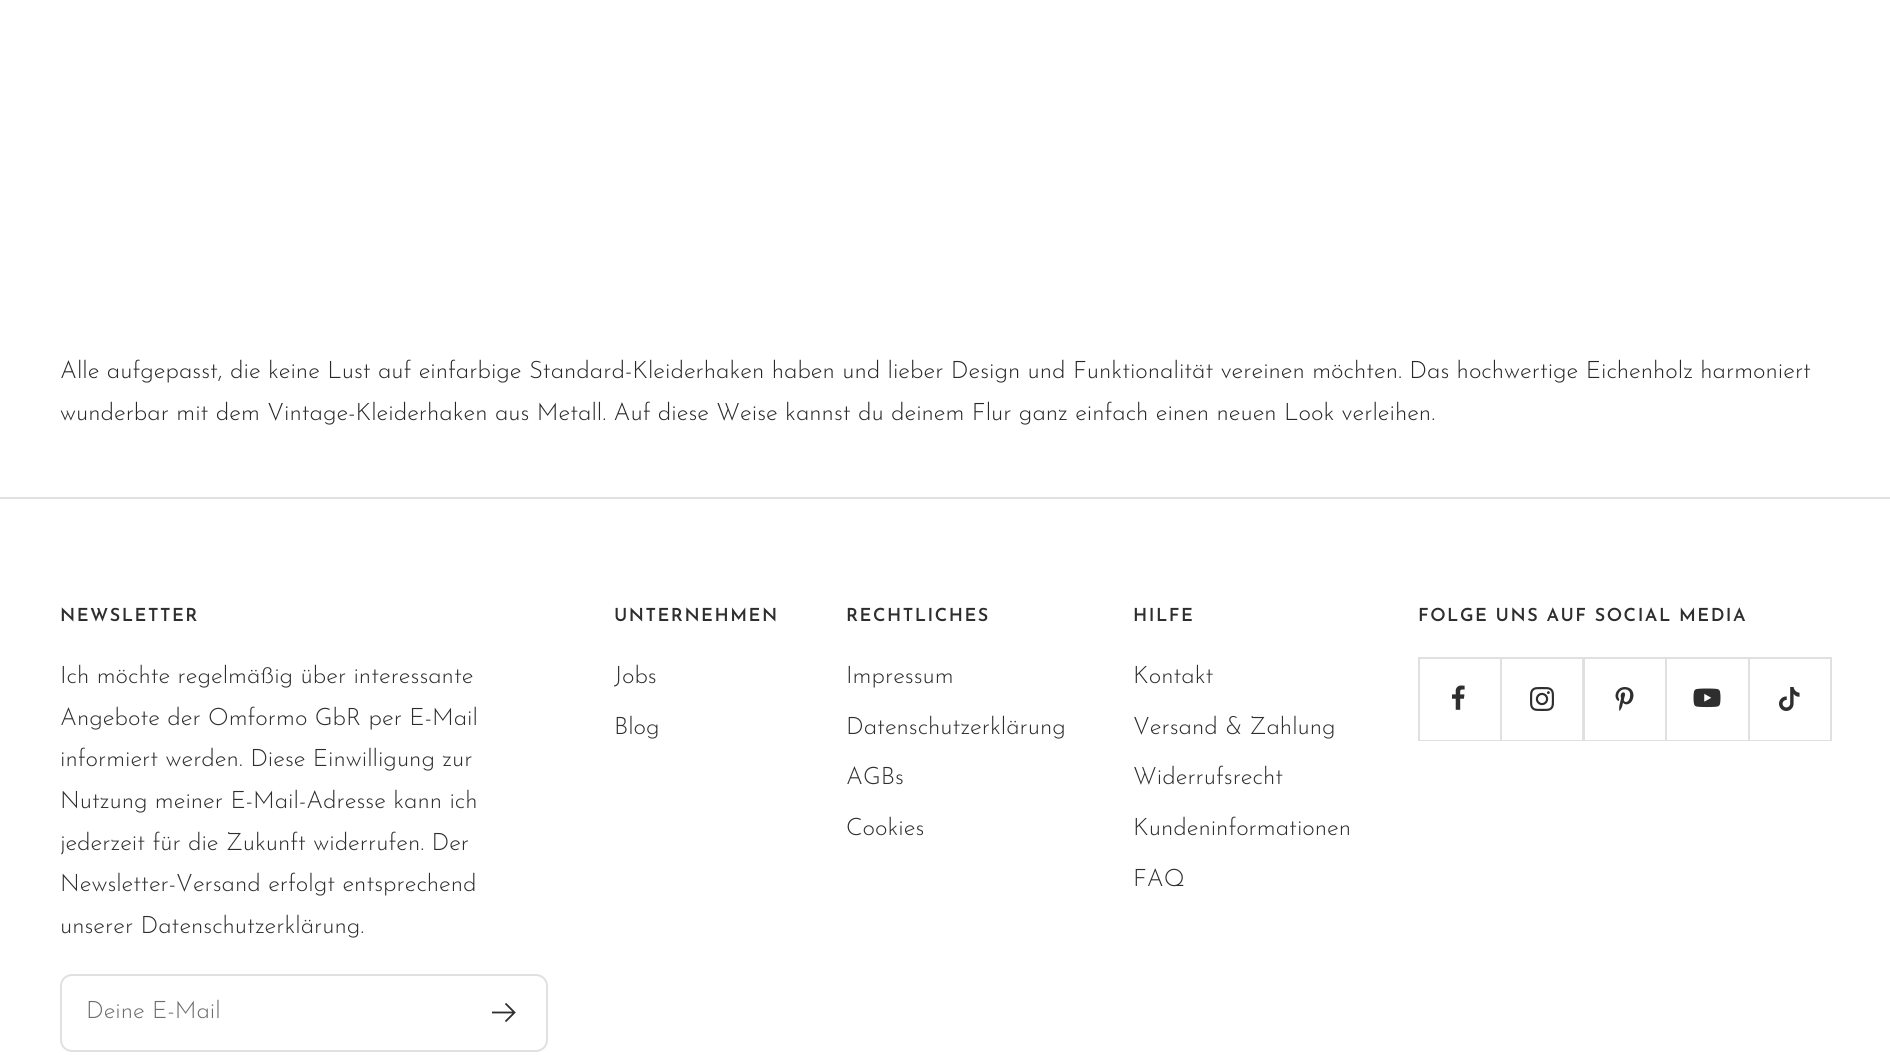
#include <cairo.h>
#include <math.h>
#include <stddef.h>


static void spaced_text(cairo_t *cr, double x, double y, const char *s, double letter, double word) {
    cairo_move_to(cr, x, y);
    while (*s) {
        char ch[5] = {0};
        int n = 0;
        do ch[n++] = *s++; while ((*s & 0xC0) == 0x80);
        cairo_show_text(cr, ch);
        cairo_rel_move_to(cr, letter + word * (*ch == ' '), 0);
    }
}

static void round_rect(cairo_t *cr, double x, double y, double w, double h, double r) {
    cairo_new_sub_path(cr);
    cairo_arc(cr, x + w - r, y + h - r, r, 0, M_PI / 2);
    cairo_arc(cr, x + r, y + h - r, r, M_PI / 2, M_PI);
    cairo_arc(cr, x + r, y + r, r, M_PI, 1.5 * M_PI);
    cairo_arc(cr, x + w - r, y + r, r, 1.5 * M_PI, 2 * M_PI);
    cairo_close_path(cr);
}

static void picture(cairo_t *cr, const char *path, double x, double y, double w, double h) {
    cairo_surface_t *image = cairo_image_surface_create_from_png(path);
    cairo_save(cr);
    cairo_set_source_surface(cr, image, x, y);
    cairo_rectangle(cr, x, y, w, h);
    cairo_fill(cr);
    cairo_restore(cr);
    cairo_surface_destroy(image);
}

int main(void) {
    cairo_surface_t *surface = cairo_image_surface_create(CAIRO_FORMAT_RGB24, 1890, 1056);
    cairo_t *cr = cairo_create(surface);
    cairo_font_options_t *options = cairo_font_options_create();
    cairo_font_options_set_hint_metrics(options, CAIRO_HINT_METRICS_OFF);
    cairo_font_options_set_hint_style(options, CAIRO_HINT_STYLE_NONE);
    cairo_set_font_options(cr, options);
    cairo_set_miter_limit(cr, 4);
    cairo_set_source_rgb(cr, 1, 1, 1);
    cairo_paint(cr);
    cairo_select_font_face(cr, "Josefin Sans Light", CAIRO_FONT_SLANT_NORMAL, CAIRO_FONT_WEIGHT_NORMAL);
    cairo_set_font_size(cr, 24);
    cairo_set_source_rgb(cr, 0.157, 0.157, 0.157);
    cairo_move_to(cr, 60, 378);
    cairo_show_text(cr, "Alle aufgepasst, die keine Lust auf einfarbige Standard-Kleiderhaken haben und lieber Design und Funktionalität vereinen möchten. Das hochwertige Eichenholz harmoniert");
    cairo_move_to(cr, 60, 420);
    cairo_show_text(cr, "wunderbar mit dem Vintage-Kleiderhaken aus Metall. Auf diese Weise kannst du deinem Flur ganz einfach einen neuen Look verleihen.");
    cairo_set_source_rgb(cr, 0.878, 0.878, 0.878);
    cairo_rectangle(cr, 0, 497, 1890, 2);
    cairo_fill(cr);
    cairo_select_font_face(cr, "Josefin Sans SemiBold", CAIRO_FONT_SLANT_NORMAL, CAIRO_FONT_WEIGHT_NORMAL);
    cairo_set_font_size(cr, 18);
    cairo_set_source_rgb(cr, 0.18, 0.18, 0.18);
    spaced_text(cr, 60, 621, "NEWSLETTER", 1.5, 0);
    cairo_select_font_face(cr, "Josefin Sans Light", CAIRO_FONT_SLANT_NORMAL, CAIRO_FONT_WEIGHT_NORMAL);
    cairo_set_font_size(cr, 24);
    cairo_move_to(cr, 60, 683);
    cairo_show_text(cr, "Ich möchte regelmäßig über interessante");
    cairo_move_to(cr, 60, 725);
    cairo_show_text(cr, "Angebote der Omformo GbR per E-Mail");
    cairo_move_to(cr, 60, 766);
    cairo_show_text(cr, "informiert werden. Diese Einwilligung zur");
    cairo_move_to(cr, 60, 808);
    cairo_show_text(cr, "Nutzung meiner E-Mail-Adresse kann ich");
    cairo_move_to(cr, 60, 850);
    cairo_show_text(cr, "jederzeit für die Zukunft widerrufen. Der");
    cairo_move_to(cr, 60, 891);
    cairo_show_text(cr, "Newsletter-Versand erfolgt entsprechend");
    cairo_move_to(cr, 60, 933);
    cairo_show_text(cr, "unserer Datenschutzerklärung.");
    round_rect(cr, 61, 975, 486, 76, 11);
    cairo_set_source_rgb(cr, 0.878, 0.878, 0.878);
    cairo_stroke(cr);
    cairo_set_source_rgb(cr, 0.427, 0.427, 0.427);
    cairo_move_to(cr, 86, 1018);
    cairo_show_text(cr, "Deine E-Mail");
    cairo_new_path(cr);
    cairo_move_to(cr, 492, 1012.5);
    cairo_line_to(cr, 514.5, 1012.5);
    cairo_move_to(cr, 505.5, 1003.5);
    cairo_line_to(cr, 514.5, 1012.5);
    cairo_line_to(cr, 505.5, 1021.5);
    cairo_set_source_rgb(cr, 0.18, 0.18, 0.18);
    cairo_set_line_width(cr, 1.8);
    cairo_stroke(cr);
    cairo_select_font_face(cr, "Josefin Sans SemiBold", CAIRO_FONT_SLANT_NORMAL, CAIRO_FONT_WEIGHT_NORMAL);
    cairo_set_font_size(cr, 18);
    spaced_text(cr, 614, 621, "UNTERNEHMEN", 1.5, 0);
    cairo_select_font_face(cr, "Josefin Sans Light", CAIRO_FONT_SLANT_NORMAL, CAIRO_FONT_WEIGHT_NORMAL);
    cairo_set_font_size(cr, 24);
    cairo_move_to(cr, 614, 683);
    cairo_show_text(cr, "Jobs");
    cairo_move_to(cr, 614, 734);
    cairo_show_text(cr, "Blog");
    cairo_select_font_face(cr, "Josefin Sans SemiBold", CAIRO_FONT_SLANT_NORMAL, CAIRO_FONT_WEIGHT_NORMAL);
    cairo_set_font_size(cr, 18);
    spaced_text(cr, 846, 621, "RECHTLICHES", 1.5, 0);
    cairo_select_font_face(cr, "Josefin Sans Light", CAIRO_FONT_SLANT_NORMAL, CAIRO_FONT_WEIGHT_NORMAL);
    cairo_set_font_size(cr, 24);
    cairo_move_to(cr, 846, 683);
    cairo_show_text(cr, "Impressum");
    cairo_move_to(cr, 846, 734);
    cairo_show_text(cr, "Datenschutzerklärung");
    cairo_move_to(cr, 846, 784);
    cairo_show_text(cr, "AGBs");
    cairo_move_to(cr, 846, 835);
    cairo_show_text(cr, "Cookies");
    cairo_select_font_face(cr, "Josefin Sans SemiBold", CAIRO_FONT_SLANT_NORMAL, CAIRO_FONT_WEIGHT_NORMAL);
    cairo_set_font_size(cr, 18);
    spaced_text(cr, 1133, 621, "HILFE", 1.5, 0);
    cairo_select_font_face(cr, "Josefin Sans Light", CAIRO_FONT_SLANT_NORMAL, CAIRO_FONT_WEIGHT_NORMAL);
    cairo_set_font_size(cr, 24);
    cairo_move_to(cr, 1133, 683);
    cairo_show_text(cr, "Kontakt");
    cairo_move_to(cr, 1133, 734);
    cairo_show_text(cr, "Versand & Zahlung");
    cairo_move_to(cr, 1133, 784);
    cairo_show_text(cr, "Widerrufsrecht");
    cairo_move_to(cr, 1133, 835);
    cairo_show_text(cr, "Kundeninformationen");
    cairo_move_to(cr, 1133, 886);
    cairo_show_text(cr, "FAQ");
    cairo_select_font_face(cr, "Josefin Sans SemiBold", CAIRO_FONT_SLANT_NORMAL, CAIRO_FONT_WEIGHT_NORMAL);
    cairo_set_font_size(cr, 18);
    spaced_text(cr, 1418, 621, "FOLGE UNS AUF SOCIAL MEDIA", 1.5, 0);
    cairo_set_source_rgb(cr, 0.878, 0.878, 0.878);
    cairo_new_path(cr);
    cairo_move_to(cr, 1419, 740);
    cairo_line_to(cr, 1419, 741);
    cairo_line_to(cr, 1502, 741);
    cairo_line_to(cr, 1502, 659);
    cairo_line_to(cr, 1500, 659);
    cairo_line_to(cr, 1500, 740);
    cairo_close_path(cr);
    cairo_fill(cr);
    cairo_rectangle(cr, 1418, 740, 1, 1);
    cairo_fill(cr);
    cairo_new_path(cr);
    cairo_move_to(cr, 1419, 740);
    cairo_line_to(cr, 1502, 740);
    cairo_line_to(cr, 1502, 657);
    cairo_line_to(cr, 1500, 657);
    cairo_line_to(cr, 1500, 740);
    cairo_close_path(cr);
    cairo_fill(cr);
    cairo_rectangle(cr, 1418, 657, 82, 2);
    cairo_fill(cr);
    cairo_rectangle(cr, 1418, 657, 2, 83);
    cairo_fill(cr);
    picture(cr, "img1.png", 1452, 685, 13, 25);
    cairo_new_path(cr);
    cairo_move_to(cr, 1502, 740);
    cairo_line_to(cr, 1502, 741);
    cairo_line_to(cr, 1584, 741);
    cairo_line_to(cr, 1584, 659);
    cairo_line_to(cr, 1582, 659);
    cairo_line_to(cr, 1582, 740);
    cairo_close_path(cr);
    cairo_fill(cr);
    cairo_new_path(cr);
    cairo_move_to(cr, 1502, 740);
    cairo_line_to(cr, 1584, 740);
    cairo_line_to(cr, 1584, 657);
    cairo_line_to(cr, 1582, 657);
    cairo_line_to(cr, 1582, 740);
    cairo_close_path(cr);
    cairo_fill(cr);
    cairo_rectangle(cr, 1500, 657, 165, 2);
    cairo_fill(cr);
    picture(cr, "img2.png", 1530, 687, 24, 24);
    cairo_new_path(cr);
    cairo_move_to(cr, 1584, 740);
    cairo_line_to(cr, 1584, 741);
    cairo_line_to(cr, 1667, 741);
    cairo_line_to(cr, 1667, 659);
    cairo_line_to(cr, 1665, 659);
    cairo_line_to(cr, 1665, 740);
    cairo_close_path(cr);
    cairo_fill(cr);
    cairo_new_path(cr);
    cairo_move_to(cr, 1584, 740);
    cairo_line_to(cr, 1667, 740);
    cairo_line_to(cr, 1667, 657);
    cairo_line_to(cr, 1665, 657);
    cairo_line_to(cr, 1665, 740);
    cairo_close_path(cr);
    cairo_fill(cr);
    cairo_rectangle(cr, 1584, 657, 1, 83);
    cairo_fill(cr);
    picture(cr, "img3.png", 1615, 687, 19, 24);
    cairo_new_path(cr);
    cairo_move_to(cr, 1667, 740);
    cairo_line_to(cr, 1667, 741);
    cairo_line_to(cr, 1749, 741);
    cairo_line_to(cr, 1749, 659);
    cairo_line_to(cr, 1748, 659);
    cairo_line_to(cr, 1748, 740);
    cairo_close_path(cr);
    cairo_fill(cr);
    cairo_rectangle(cr, 1665, 657, 165, 2);
    cairo_fill(cr);
    picture(cr, "img4.png", 1693, 688, 28, 20);
    cairo_new_path(cr);
    cairo_move_to(cr, 1749, 740);
    cairo_line_to(cr, 1749, 741);
    cairo_line_to(cr, 1832, 741);
    cairo_line_to(cr, 1832, 659);
    cairo_line_to(cr, 1830, 659);
    cairo_line_to(cr, 1830, 740);
    cairo_close_path(cr);
    cairo_fill(cr);
    cairo_new_path(cr);
    cairo_move_to(cr, 1749, 740);
    cairo_line_to(cr, 1832, 740);
    cairo_line_to(cr, 1832, 657);
    cairo_line_to(cr, 1830, 657);
    cairo_line_to(cr, 1830, 740);
    cairo_close_path(cr);
    cairo_fill(cr);
    cairo_rectangle(cr, 1749, 657, 1, 83);
    cairo_fill(cr);
    picture(cr, "img5.png", 1779, 687, 21, 24);
    cairo_surface_write_to_png(surface, "page.png");
    cairo_font_options_destroy(options);
    cairo_destroy(cr);
    cairo_surface_destroy(surface);
    return 0;
}
